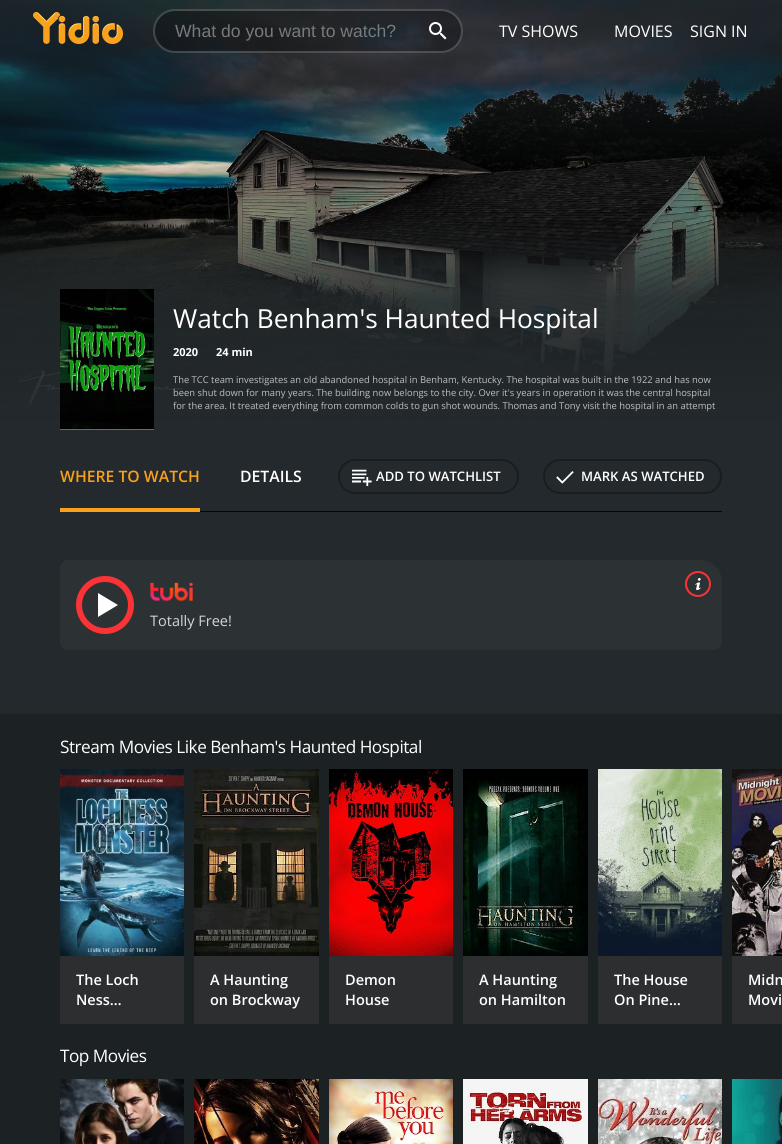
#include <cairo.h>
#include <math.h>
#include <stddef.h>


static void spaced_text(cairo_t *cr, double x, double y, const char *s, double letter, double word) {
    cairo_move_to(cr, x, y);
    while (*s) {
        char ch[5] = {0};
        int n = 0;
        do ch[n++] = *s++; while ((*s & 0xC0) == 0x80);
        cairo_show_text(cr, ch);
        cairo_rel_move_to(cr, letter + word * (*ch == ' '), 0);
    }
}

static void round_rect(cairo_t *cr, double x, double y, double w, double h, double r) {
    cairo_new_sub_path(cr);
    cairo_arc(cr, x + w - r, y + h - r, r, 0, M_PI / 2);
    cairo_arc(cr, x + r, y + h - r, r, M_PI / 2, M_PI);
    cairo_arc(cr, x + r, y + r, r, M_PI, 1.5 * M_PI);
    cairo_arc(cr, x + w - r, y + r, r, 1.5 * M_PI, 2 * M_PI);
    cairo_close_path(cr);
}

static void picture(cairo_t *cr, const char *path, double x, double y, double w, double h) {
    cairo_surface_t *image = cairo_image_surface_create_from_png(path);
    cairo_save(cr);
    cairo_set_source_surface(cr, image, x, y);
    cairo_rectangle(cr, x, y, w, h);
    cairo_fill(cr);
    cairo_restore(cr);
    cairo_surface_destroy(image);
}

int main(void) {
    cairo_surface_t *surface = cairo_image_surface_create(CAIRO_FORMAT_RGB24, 782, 1144);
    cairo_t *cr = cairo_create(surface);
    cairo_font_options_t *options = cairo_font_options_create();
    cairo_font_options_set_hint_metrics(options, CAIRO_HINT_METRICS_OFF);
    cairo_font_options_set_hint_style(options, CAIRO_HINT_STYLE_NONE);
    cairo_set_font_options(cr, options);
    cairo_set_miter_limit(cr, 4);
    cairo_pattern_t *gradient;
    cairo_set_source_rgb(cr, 0.137, 0.161, 0.173);
    cairo_paint(cr);
    picture(cr, "img3.png", 0, 0, 782, 420);
    picture(cr, "img1.png", 33, 12, 90, 32);
    cairo_set_source_rgba(cr, 0, 0, 0, 0.3);
    round_rect(cr, 153, 9, 310, 44, 22);
    cairo_fill(cr);
    round_rect(cr, 154, 10, 308, 42, 21);
    cairo_set_source_rgba(cr, 1, 1, 1, 0.2);
    cairo_stroke(cr);
    cairo_select_font_face(cr, "Liberation Sans", CAIRO_FONT_SLANT_NORMAL, CAIRO_FONT_WEIGHT_NORMAL);
    cairo_set_font_size(cr, 17.6);
    cairo_set_source_rgb(cr, 0.467, 0.478, 0.482);
    cairo_move_to(cr, 175, 37);
    cairo_show_text(cr, "What do you want to watch?");
    picture(cr, "img2.png", 429, 22, 18, 18);
    cairo_select_font_face(cr, "Open Sans", CAIRO_FONT_SLANT_NORMAL, CAIRO_FONT_WEIGHT_NORMAL);
    cairo_set_font_size(cr, 16);
    cairo_set_source_rgb(cr, 1, 1, 1);
    cairo_move_to(cr, 499, 37);
    cairo_show_text(cr, "TV SHOWS");
    cairo_move_to(cr, 614, 37);
    cairo_show_text(cr, "MOVIES");
    cairo_move_to(cr, 690, 37);
    cairo_show_text(cr, "SIGN IN");
    gradient = cairo_pattern_create_linear(391, 211, 391, 430);
    cairo_pattern_add_color_stop_rgba(gradient, 0, 0.137, 0.161, 0.173, 0);
    cairo_pattern_add_color_stop_rgba(gradient, 0.4, 0.137, 0.161, 0.173, 0.8);
    cairo_pattern_add_color_stop_rgba(gradient, 1, 0.137, 0.161, 0.173, 1);
    cairo_set_source(cr, gradient);
    cairo_pattern_destroy(gradient);
    cairo_rectangle(cr, 0, 214, 782, 206);
    cairo_fill(cr);
    picture(cr, "img4.png", 60, 289, 94, 141);
    cairo_set_font_size(cr, 26.25);
    cairo_set_source_rgb(cr, 1, 1, 1);
    cairo_move_to(cr, 173, 328);
    cairo_show_text(cr, "Watch Benham's Haunted Hospital");
    cairo_select_font_face(cr, "Open Sans", CAIRO_FONT_SLANT_NORMAL, CAIRO_FONT_WEIGHT_BOLD);
    cairo_set_font_size(cr, 11);
    cairo_move_to(cr, 173, 356);
    cairo_show_text(cr, "2020");
    cairo_move_to(cr, 216, 356);
    cairo_show_text(cr, "24 min");
    cairo_select_font_face(cr, "Open Sans", CAIRO_FONT_SLANT_NORMAL, CAIRO_FONT_WEIGHT_NORMAL);
    cairo_set_font_size(cr, 9.38);
    cairo_set_source_rgb(cr, 0.741, 0.745, 0.749);
    cairo_move_to(cr, 173, 383);
    cairo_show_text(cr, "The TCC team investigates an old abandoned hospital in Benham, Kentucky. The hospital was built in the 1922 and has now");
    cairo_move_to(cr, 173, 396);
    cairo_show_text(cr, "been shut down for many years. The building now belongs to the city. Over it's years in operation it was the central hospital");
    cairo_move_to(cr, 173, 409);
    cairo_show_text(cr, "for the area. It treated everything from common colds to gun shot wounds. Thomas and Tony visit the hospital in an attempt");
    cairo_set_source_rgb(cr, 0.027, 0.031, 0.035);
    cairo_rectangle(cr, 200, 511, 522, 1);
    cairo_fill(cr);
    cairo_set_source_rgb(cr, 0.976, 0.631, 0.106);
    cairo_rectangle(cr, 60, 508, 140, 4);
    cairo_fill(cr);
    cairo_select_font_face(cr, "Open Sans SemiBold", CAIRO_FONT_SLANT_NORMAL, CAIRO_FONT_WEIGHT_NORMAL);
    cairo_set_font_size(cr, 15.75);
    cairo_move_to(cr, 60, 482);
    cairo_show_text(cr, "WHERE TO WATCH");
    cairo_set_source_rgb(cr, 1, 1, 1);
    cairo_move_to(cr, 240, 482);
    cairo_show_text(cr, "DETAILS");
    round_rect(cr, 339, 460, 179, 33, 16.5);
    cairo_set_source_rgb(cr, 0.098, 0.114, 0.122);
    cairo_stroke(cr);
    picture(cr, "img5.png", 352, 469, 20, 17);
    cairo_set_font_size(cr, 13.1);
    cairo_set_source_rgb(cr, 1, 1, 1);
    cairo_move_to(cr, 376, 481);
    cairo_show_text(cr, "ADD TO WATCHLIST");
    round_rect(cr, 544, 460, 177, 33, 16.5);
    cairo_set_source_rgb(cr, 0.098, 0.114, 0.122);
    cairo_stroke(cr);
    picture(cr, "img6.png", 556, 471, 18, 13);
    cairo_set_source_rgb(cr, 1, 1, 1);
    cairo_move_to(cr, 581, 481);
    cairo_show_text(cr, "MARK AS WATCHED");
    cairo_set_source_rgb(cr, 0.173, 0.196, 0.204);
    cairo_new_path(cr);
    cairo_move_to(cr, 68, 560);
    cairo_line_to(cr, 700, 560);
    cairo_curve_to(cr, 712, 560, 722, 570, 722, 582);
    cairo_line_to(cr, 722, 642);
    cairo_curve_to(cr, 722, 646.5, 718.5, 650, 714, 650);
    cairo_line_to(cr, 68, 650);
    cairo_curve_to(cr, 63.5, 650, 60, 646.5, 60, 642);
    cairo_line_to(cr, 60, 568);
    cairo_curve_to(cr, 60, 563.5, 63.5, 560, 68, 560);
    cairo_close_path(cr);
    cairo_fill(cr);
    cairo_arc(cr, 105, 605, 26, 0, 2 * M_PI);
    cairo_set_source_rgb(cr, 0.984, 0.2, 0.212);
    cairo_set_line_width(cr, 6);
    cairo_stroke(cr);
    cairo_set_source_rgb(cr, 1, 1, 1);
    cairo_new_path(cr);
    cairo_move_to(cr, 98, 617);
    cairo_line_to(cr, 98, 593);
    cairo_line_to(cr, 118, 605);
    cairo_close_path(cr);
    cairo_fill(cr);
    picture(cr, "img7.png", 150, 582, 43, 20);
    cairo_select_font_face(cr, "Open Sans", CAIRO_FONT_SLANT_NORMAL, CAIRO_FONT_WEIGHT_NORMAL);
    cairo_set_font_size(cr, 14.5);
    cairo_set_source_rgb(cr, 0.835, 0.839, 0.839);
    cairo_move_to(cr, 150, 626);
    cairo_show_text(cr, "Totally Free!");
    cairo_new_path(cr);
    cairo_arc(cr, 698, 584, 12, 0, 2 * M_PI);
    cairo_set_source_rgb(cr, 0.984, 0.2, 0.212);
    cairo_set_line_width(cr, 2);
    cairo_stroke(cr);
    picture(cr, "img8.png", 695, 578, 6, 12);
    cairo_set_source_rgb(cr, 0.11, 0.129, 0.137);
    cairo_rectangle(cr, 0, 714, 782, 430);
    cairo_fill(cr);
    cairo_set_font_size(cr, 17.2);
    cairo_set_source_rgb(cr, 1, 1, 1);
    spaced_text(cr, 60, 753, "Stream Movies Like Benham's Haunted Hospital", -0.5, 0);
    picture(cr, "img9.png", 60, 769, 124, 187);
    cairo_set_source_rgb(cr, 0.173, 0.18, 0.188);
    cairo_rectangle(cr, 60, 956, 124, 68);
    cairo_fill(cr);
    cairo_select_font_face(cr, "Open Sans SemiBold", CAIRO_FONT_SLANT_NORMAL, CAIRO_FONT_WEIGHT_NORMAL);
    cairo_set_font_size(cr, 14.5);
    cairo_set_source_rgb(cr, 1, 1, 1);
    cairo_move_to(cr, 76, 985);
    cairo_show_text(cr, "The Loch");
    cairo_move_to(cr, 76, 1005);
    cairo_show_text(cr, "Ness…");
    picture(cr, "img10.png", 194, 769, 125, 187);
    cairo_set_source_rgb(cr, 0.173, 0.18, 0.188);
    cairo_rectangle(cr, 194, 956, 125, 68);
    cairo_fill(cr);
    cairo_set_source_rgb(cr, 1, 1, 1);
    cairo_move_to(cr, 210, 985);
    cairo_show_text(cr, "A Haunting");
    cairo_move_to(cr, 210, 1005);
    cairo_show_text(cr, "on Brockway");
    picture(cr, "img11.png", 329, 769, 124, 187);
    cairo_set_source_rgb(cr, 0.173, 0.18, 0.188);
    cairo_rectangle(cr, 329, 956, 124, 68);
    cairo_fill(cr);
    cairo_set_source_rgb(cr, 1, 1, 1);
    cairo_move_to(cr, 345, 985);
    cairo_show_text(cr, "Demon");
    cairo_move_to(cr, 345, 1005);
    cairo_show_text(cr, "House");
    picture(cr, "img12.png", 463, 769, 125, 187);
    cairo_set_source_rgb(cr, 0.173, 0.18, 0.188);
    cairo_rectangle(cr, 463, 956, 125, 68);
    cairo_fill(cr);
    cairo_set_source_rgb(cr, 1, 1, 1);
    cairo_move_to(cr, 479, 985);
    cairo_show_text(cr, "A Haunting");
    cairo_move_to(cr, 479, 1005);
    cairo_show_text(cr, "on Hamilton");
    picture(cr, "img13.png", 598, 769, 124, 187);
    cairo_set_source_rgb(cr, 0.173, 0.18, 0.188);
    cairo_rectangle(cr, 598, 956, 124, 68);
    cairo_fill(cr);
    cairo_set_source_rgb(cr, 1, 1, 1);
    cairo_move_to(cr, 614, 985);
    cairo_show_text(cr, "The House");
    cairo_move_to(cr, 614, 1005);
    cairo_show_text(cr, "On Pine…");
    picture(cr, "img14.png", 732, 769, 50, 187);
    cairo_set_source_rgb(cr, 0.173, 0.18, 0.188);
    cairo_rectangle(cr, 732, 956, 50, 68);
    cairo_fill(cr);
    cairo_set_source_rgb(cr, 1, 1, 1);
    cairo_move_to(cr, 748, 985);
    cairo_show_text(cr, "Midn");
    cairo_move_to(cr, 748, 1005);
    cairo_show_text(cr, "Movi");
    cairo_select_font_face(cr, "Open Sans", CAIRO_FONT_SLANT_NORMAL, CAIRO_FONT_WEIGHT_NORMAL);
    cairo_set_font_size(cr, 17.2);
    spaced_text(cr, 60, 1062, "Top Movies", -0.5, 0);
    picture(cr, "img15.png", 60, 1079, 124, 65);
    picture(cr, "img16.png", 194, 1079, 125, 65);
    picture(cr, "img17.png", 329, 1079, 124, 65);
    picture(cr, "img18.png", 463, 1079, 125, 65);
    picture(cr, "img19.png", 598, 1079, 124, 65);
    picture(cr, "img20.png", 732, 1079, 50, 65);
    cairo_surface_write_to_png(surface, "page.png");
    cairo_font_options_destroy(options);
    cairo_destroy(cr);
    cairo_surface_destroy(surface);
    return 0;
}
